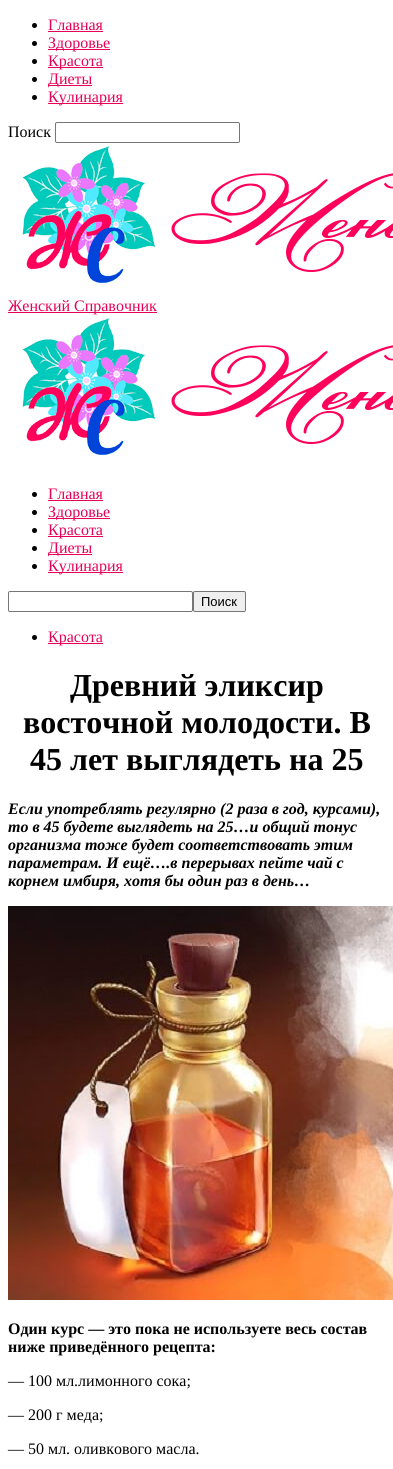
#include <cairo.h>
#include <math.h>
#include <stddef.h>


static void round_rect(cairo_t *cr, double x, double y, double w, double h, double r) {
    cairo_new_sub_path(cr);
    cairo_arc(cr, x + w - r, y + h - r, r, 0, M_PI / 2);
    cairo_arc(cr, x + r, y + h - r, r, M_PI / 2, M_PI);
    cairo_arc(cr, x + r, y + r, r, M_PI, 1.5 * M_PI);
    cairo_arc(cr, x + w - r, y + r, r, 1.5 * M_PI, 2 * M_PI);
    cairo_close_path(cr);
}

static void picture(cairo_t *cr, const char *path, double x, double y, double w, double h) {
    cairo_surface_t *image = cairo_image_surface_create_from_png(path);
    cairo_save(cr);
    cairo_set_source_surface(cr, image, x, y);
    cairo_rectangle(cr, x, y, w, h);
    cairo_fill(cr);
    cairo_restore(cr);
    cairo_surface_destroy(image);
}

int main(void) {
    cairo_surface_t *surface = cairo_image_surface_create(CAIRO_FORMAT_RGB24, 393, 1469);
    cairo_t *cr = cairo_create(surface);
    cairo_font_options_t *options = cairo_font_options_create();
    cairo_font_options_set_hint_metrics(options, CAIRO_HINT_METRICS_OFF);
    cairo_font_options_set_hint_style(options, CAIRO_HINT_STYLE_NONE);
    cairo_set_font_options(cr, options);
    cairo_set_miter_limit(cr, 4);
    cairo_set_source_rgb(cr, 1, 1, 1);
    cairo_paint(cr);
    cairo_set_source_rgb(cr, 0, 0, 0);
    cairo_arc(cr, 34.5, 25.5, 2.5, 0, 2 * M_PI);
    cairo_fill(cr);
    cairo_select_font_face(cr, "Liberation Serif", CAIRO_FONT_SLANT_NORMAL, CAIRO_FONT_WEIGHT_NORMAL);
    cairo_set_font_size(cr, 16);
    cairo_set_source_rgb(cr, 0.906, 0, 0.341);
    cairo_move_to(cr, 48, 30);
    cairo_show_text(cr, "Главная");
    cairo_rectangle(cr, 48, 31, 55, 1);
    cairo_fill(cr);
    cairo_set_source_rgb(cr, 0, 0, 0);
    cairo_arc(cr, 34.5, 43.5, 2.5, 0, 2 * M_PI);
    cairo_fill(cr);
    cairo_set_source_rgb(cr, 0.906, 0, 0.341);
    cairo_rectangle(cr, 48, 49, 62, 1);
    cairo_fill(cr);
    cairo_move_to(cr, 48, 48);
    cairo_show_text(cr, "Здоровье");
    cairo_set_source_rgb(cr, 0, 0, 0);
    cairo_new_path(cr);
    cairo_arc(cr, 34.5, 61.5, 2.5, 0, 2 * M_PI);
    cairo_fill(cr);
    cairo_set_source_rgb(cr, 0.906, 0, 0.341);
    cairo_rectangle(cr, 48, 67, 55, 1);
    cairo_fill(cr);
    cairo_move_to(cr, 48, 66);
    cairo_show_text(cr, "Красота");
    cairo_set_source_rgb(cr, 0, 0, 0);
    cairo_new_path(cr);
    cairo_arc(cr, 34.5, 79.5, 2.5, 0, 2 * M_PI);
    cairo_fill(cr);
    cairo_set_source_rgb(cr, 0.906, 0, 0.341);
    cairo_rectangle(cr, 48, 85, 44, 1);
    cairo_fill(cr);
    cairo_move_to(cr, 48, 84);
    cairo_show_text(cr, "Диеты");
    cairo_set_source_rgb(cr, 0, 0, 0);
    cairo_new_path(cr);
    cairo_arc(cr, 34.5, 97.5, 2.5, 0, 2 * M_PI);
    cairo_fill(cr);
    cairo_set_source_rgb(cr, 0.906, 0, 0.341);
    cairo_rectangle(cr, 48, 103, 75, 1);
    cairo_fill(cr);
    cairo_move_to(cr, 48, 102);
    cairo_show_text(cr, "Кулинария");
    cairo_set_source_rgb(cr, 0, 0, 0);
    cairo_move_to(cr, 8, 137);
    cairo_show_text(cr, "Поиск");
    round_rect(cr, 55.5, 122.5, 184, 20, 1.5);
    cairo_set_source_rgb(cr, 0.463, 0.463, 0.463);
    cairo_set_line_width(cr, 1);
    cairo_stroke(cr);
    picture(cr, "img1.png", 22, 146, 371, 137);
    cairo_set_source_rgb(cr, 0.906, 0, 0.341);
    cairo_rectangle(cr, 8, 312, 149, 1);
    cairo_fill(cr);
    cairo_move_to(cr, 8, 311);
    cairo_show_text(cr, "Женский Справочник");
    picture(cr, "img1.png", 22, 318, 371, 137);
    cairo_set_source_rgb(cr, 0, 0, 0);
    cairo_arc(cr, 34.5, 494.5, 2.5, 0, 2 * M_PI);
    cairo_fill(cr);
    cairo_set_source_rgb(cr, 0.906, 0, 0.341);
    cairo_move_to(cr, 48, 499);
    cairo_show_text(cr, "Главная");
    cairo_rectangle(cr, 48, 500, 55, 1);
    cairo_fill(cr);
    cairo_set_source_rgb(cr, 0, 0, 0);
    cairo_arc(cr, 34.5, 512.5, 2.5, 0, 2 * M_PI);
    cairo_fill(cr);
    cairo_set_source_rgb(cr, 0.906, 0, 0.341);
    cairo_rectangle(cr, 48, 518, 62, 1);
    cairo_fill(cr);
    cairo_move_to(cr, 48, 517);
    cairo_show_text(cr, "Здоровье");
    cairo_set_source_rgb(cr, 0, 0, 0);
    cairo_new_path(cr);
    cairo_arc(cr, 34.5, 530.5, 2.5, 0, 2 * M_PI);
    cairo_fill(cr);
    cairo_set_source_rgb(cr, 0.906, 0, 0.341);
    cairo_rectangle(cr, 48, 536, 55, 1);
    cairo_fill(cr);
    cairo_move_to(cr, 48, 535);
    cairo_show_text(cr, "Красота");
    cairo_set_source_rgb(cr, 0, 0, 0);
    cairo_new_path(cr);
    cairo_arc(cr, 34.5, 548.5, 2.5, 0, 2 * M_PI);
    cairo_fill(cr);
    cairo_set_source_rgb(cr, 0.906, 0, 0.341);
    cairo_rectangle(cr, 48, 554, 44, 1);
    cairo_fill(cr);
    cairo_move_to(cr, 48, 553);
    cairo_show_text(cr, "Диеты");
    cairo_set_source_rgb(cr, 0, 0, 0);
    cairo_new_path(cr);
    cairo_arc(cr, 34.5, 566.5, 2.5, 0, 2 * M_PI);
    cairo_fill(cr);
    cairo_set_source_rgb(cr, 0.906, 0, 0.341);
    cairo_rectangle(cr, 48, 572, 75, 1);
    cairo_fill(cr);
    cairo_move_to(cr, 48, 571);
    cairo_show_text(cr, "Кулинария");
    round_rect(cr, 8.5, 591.5, 184, 20, 1.5);
    cairo_set_source_rgb(cr, 0.463, 0.463, 0.463);
    cairo_stroke(cr);
    cairo_set_source_rgb(cr, 0.937, 0.937, 0.937);
    round_rect(cr, 193.5, 591.5, 52, 20, 1.5);
    cairo_fill_preserve(cr);
    cairo_set_source_rgb(cr, 0.463, 0.463, 0.463);
    cairo_stroke(cr);
    cairo_select_font_face(cr, "Liberation Sans", CAIRO_FONT_SLANT_NORMAL, CAIRO_FONT_WEIGHT_NORMAL);
    cairo_set_font_size(cr, 13);
    cairo_set_source_rgb(cr, 0, 0, 0);
    cairo_move_to(cr, 201, 606);
    cairo_show_text(cr, "Поиск");
    cairo_new_path(cr);
    cairo_arc(cr, 34.5, 637.5, 2.5, 0, 2 * M_PI);
    cairo_fill(cr);
    cairo_set_source_rgb(cr, 0.906, 0, 0.341);
    cairo_rectangle(cr, 48, 643, 55, 1);
    cairo_fill(cr);
    cairo_select_font_face(cr, "Liberation Serif", CAIRO_FONT_SLANT_NORMAL, CAIRO_FONT_WEIGHT_NORMAL);
    cairo_set_font_size(cr, 16);
    cairo_move_to(cr, 48, 642);
    cairo_show_text(cr, "Красота");
    cairo_select_font_face(cr, "Liberation Serif", CAIRO_FONT_SLANT_NORMAL, CAIRO_FONT_WEIGHT_BOLD);
    cairo_set_font_size(cr, 32);
    cairo_set_source_rgb(cr, 0, 0, 0);
    cairo_move_to(cr, 70, 696);
    cairo_show_text(cr, "Древний эликсир");
    cairo_move_to(cr, 23, 733);
    cairo_show_text(cr, "восточной молодости. В");
    cairo_move_to(cr, 30, 770);
    cairo_show_text(cr, "45 лет выглядеть на 25");
    cairo_select_font_face(cr, "Liberation Serif", CAIRO_FONT_SLANT_ITALIC, CAIRO_FONT_WEIGHT_BOLD);
    cairo_set_font_size(cr, 16);
    cairo_move_to(cr, 8, 814);
    cairo_show_text(cr, "Если употреблять регулярно (2 раза в год, курсами),");
    cairo_move_to(cr, 8, 832);
    cairo_show_text(cr, "то в 45 будете выглядеть на 25…и общий тонус");
    cairo_move_to(cr, 8, 850);
    cairo_show_text(cr, "организма тоже будет соответствовать этим");
    cairo_move_to(cr, 8, 868);
    cairo_show_text(cr, "параметрам. И ещё….в перерывах пейте чай с");
    cairo_move_to(cr, 8, 886);
    cairo_show_text(cr, "корнем имбиря, хотя бы один раз в день…");
    picture(cr, "img2.png", 8, 906, 385, 394);
    cairo_select_font_face(cr, "Liberation Serif", CAIRO_FONT_SLANT_NORMAL, CAIRO_FONT_WEIGHT_BOLD);
    cairo_move_to(cr, 8, 1334);
    cairo_show_text(cr, "Один курс — это пока не используете весь состав");
    cairo_move_to(cr, 8, 1352);
    cairo_show_text(cr, "ниже приведённого рецепта:");
    cairo_select_font_face(cr, "Liberation Serif", CAIRO_FONT_SLANT_NORMAL, CAIRO_FONT_WEIGHT_NORMAL);
    cairo_move_to(cr, 8, 1386);
    cairo_show_text(cr, "— 100 мл.лимонного сока;");
    cairo_move_to(cr, 8, 1420);
    cairo_show_text(cr, "— 200 г меда;");
    cairo_move_to(cr, 8, 1454);
    cairo_show_text(cr, "— 50 мл. оливкового масла.");
    cairo_surface_write_to_png(surface, "page.png");
    cairo_font_options_destroy(options);
    cairo_destroy(cr);
    cairo_surface_destroy(surface);
    return 0;
}
